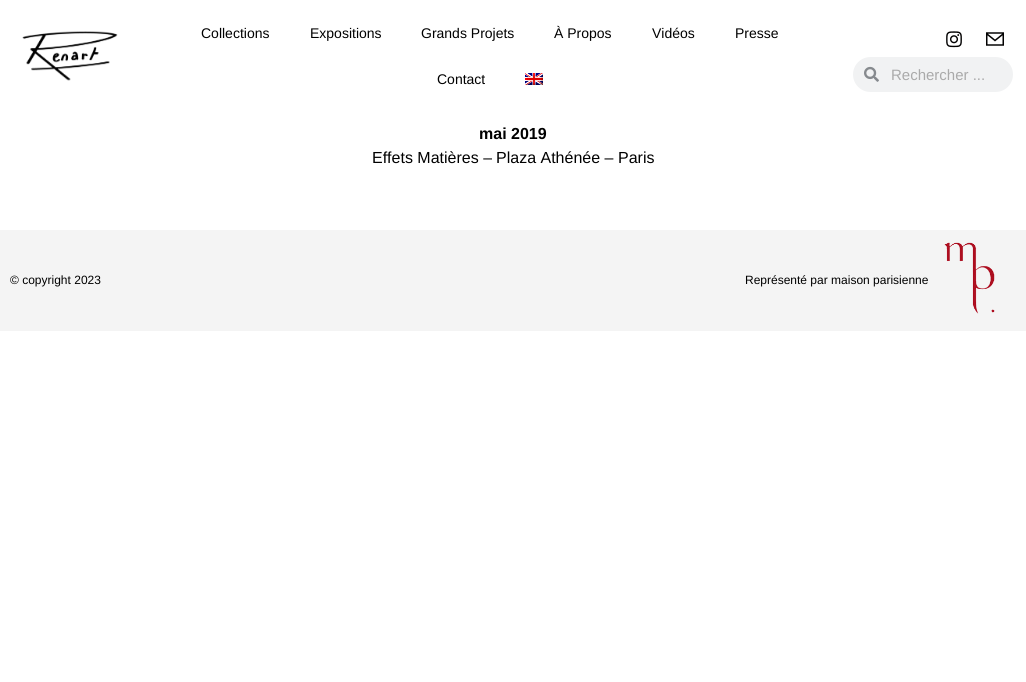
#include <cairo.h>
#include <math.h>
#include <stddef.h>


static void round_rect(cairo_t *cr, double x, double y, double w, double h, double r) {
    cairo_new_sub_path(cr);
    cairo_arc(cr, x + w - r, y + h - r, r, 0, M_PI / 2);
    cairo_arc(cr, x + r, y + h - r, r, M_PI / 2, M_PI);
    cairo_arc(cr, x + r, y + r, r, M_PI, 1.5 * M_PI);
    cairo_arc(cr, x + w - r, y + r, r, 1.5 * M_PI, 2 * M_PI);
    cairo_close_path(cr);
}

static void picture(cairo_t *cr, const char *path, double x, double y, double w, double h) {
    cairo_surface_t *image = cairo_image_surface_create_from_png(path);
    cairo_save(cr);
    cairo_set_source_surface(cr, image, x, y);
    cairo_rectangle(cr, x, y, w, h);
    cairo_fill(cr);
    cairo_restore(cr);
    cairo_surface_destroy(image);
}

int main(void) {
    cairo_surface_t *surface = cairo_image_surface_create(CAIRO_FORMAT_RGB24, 1026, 682);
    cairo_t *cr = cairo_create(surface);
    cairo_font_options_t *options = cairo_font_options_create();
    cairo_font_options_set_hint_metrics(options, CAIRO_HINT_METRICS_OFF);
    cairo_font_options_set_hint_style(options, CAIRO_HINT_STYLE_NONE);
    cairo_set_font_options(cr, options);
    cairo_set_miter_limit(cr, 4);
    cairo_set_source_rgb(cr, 1, 1, 1);
    cairo_paint(cr);
    picture(cr, "img1.png", 22, 31, 96, 50);
    cairo_select_font_face(cr, "Liberation Sans", CAIRO_FONT_SLANT_NORMAL, CAIRO_FONT_WEIGHT_NORMAL);
    cairo_set_font_size(cr, 14);
    cairo_set_source_rgb(cr, 0, 0, 0);
    cairo_move_to(cr, 201, 38);
    cairo_show_text(cr, "Collections");
    cairo_move_to(cr, 310, 38);
    cairo_show_text(cr, "Expositions");
    cairo_move_to(cr, 421, 38);
    cairo_show_text(cr, "Grands Projets");
    cairo_move_to(cr, 554, 38);
    cairo_show_text(cr, "À Propos");
    cairo_move_to(cr, 652, 38);
    cairo_show_text(cr, "Vidéos");
    cairo_move_to(cr, 735, 38);
    cairo_show_text(cr, "Presse");
    cairo_move_to(cr, 437, 84);
    cairo_show_text(cr, "Contact");
    picture(cr, "img2.png", 525, 73, 18, 12);
    picture(cr, "img3.png", 946, 31, 16, 17);
    picture(cr, "img4.png", 986, 32, 18, 14);
    cairo_set_source_rgb(cr, 0.945, 0.949, 0.953);
    round_rect(cr, 853, 57, 160, 35, 17.5);
    cairo_fill(cr);
    picture(cr, "img5.png", 864, 66, 15, 16);
    cairo_set_font_size(cr, 15);
    cairo_set_source_rgb(cr, 0.667, 0.667, 0.667);
    cairo_move_to(cr, 891, 80);
    cairo_show_text(cr, "Rechercher ...");
    cairo_select_font_face(cr, "Liberation Sans", CAIRO_FONT_SLANT_NORMAL, CAIRO_FONT_WEIGHT_BOLD);
    cairo_set_font_size(cr, 16);
    cairo_set_source_rgb(cr, 0, 0, 0);
    cairo_move_to(cr, 479, 139);
    cairo_show_text(cr, "mai 2019");
    cairo_select_font_face(cr, "Liberation Sans", CAIRO_FONT_SLANT_NORMAL, CAIRO_FONT_WEIGHT_NORMAL);
    cairo_move_to(cr, 372, 163);
    cairo_show_text(cr, "Effets Matières –");
    cairo_move_to(cr, 496, 163);
    cairo_show_text(cr, "Plaza Athénée –");
    cairo_move_to(cr, 618, 163);
    cairo_show_text(cr, "Paris");
    cairo_set_source_rgb(cr, 0.957, 0.957, 0.957);
    cairo_rectangle(cr, 0, 230, 1026, 101);
    cairo_fill(cr);
    cairo_set_font_size(cr, 12);
    cairo_set_source_rgb(cr, 0, 0, 0);
    cairo_move_to(cr, 10, 284);
    cairo_show_text(cr, "© copyright 2023");
    cairo_move_to(cr, 745, 284);
    cairo_show_text(cr, "Représenté par maison parisienne");
    picture(cr, "img6.png", 944, 242, 51, 72);
    cairo_surface_write_to_png(surface, "page.png");
    cairo_font_options_destroy(options);
    cairo_destroy(cr);
    cairo_surface_destroy(surface);
    return 0;
}
